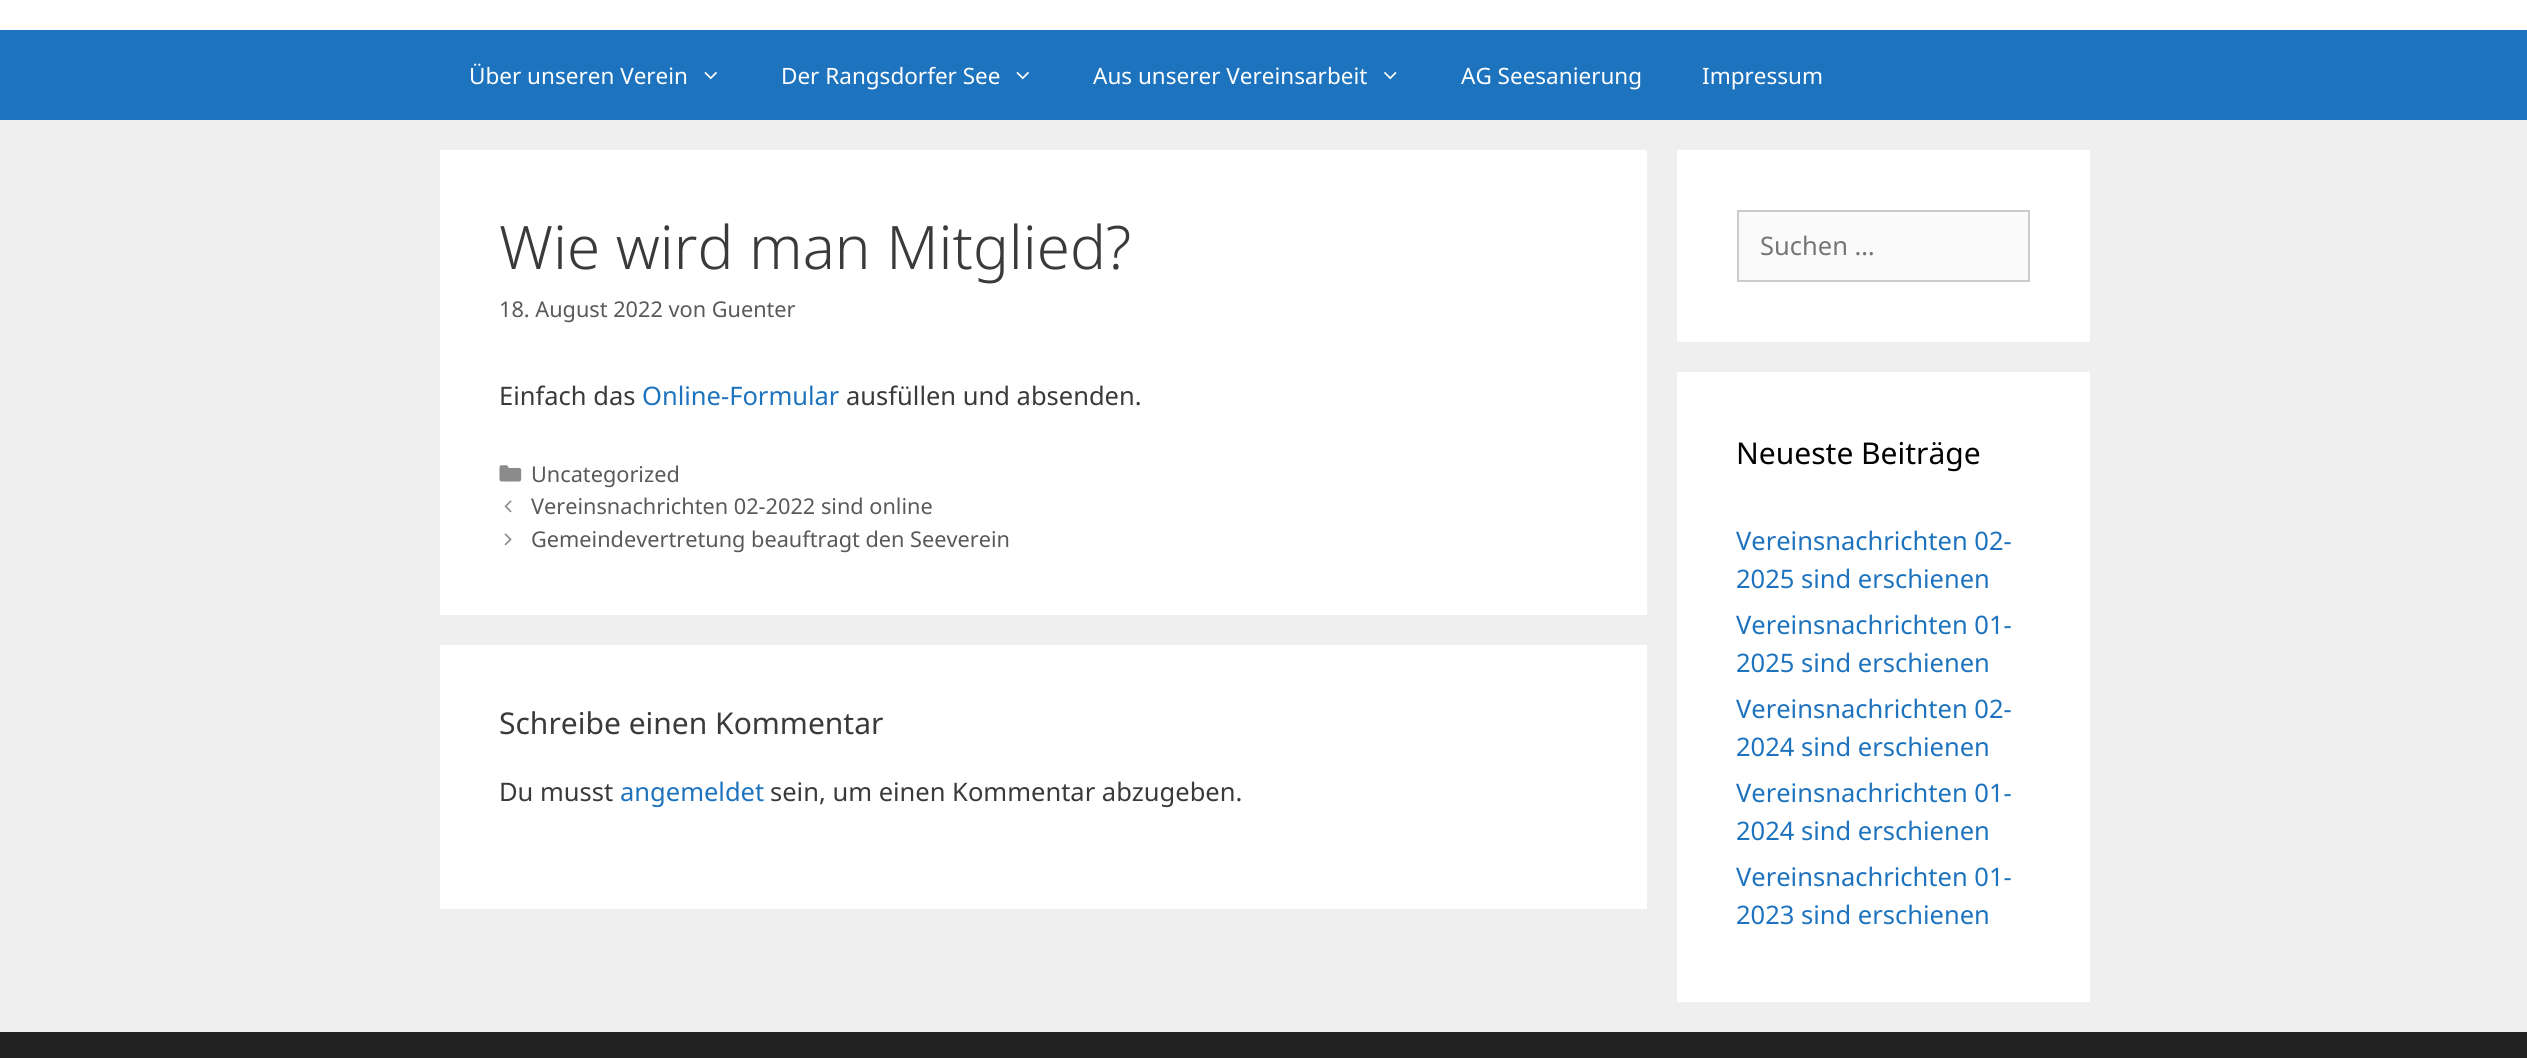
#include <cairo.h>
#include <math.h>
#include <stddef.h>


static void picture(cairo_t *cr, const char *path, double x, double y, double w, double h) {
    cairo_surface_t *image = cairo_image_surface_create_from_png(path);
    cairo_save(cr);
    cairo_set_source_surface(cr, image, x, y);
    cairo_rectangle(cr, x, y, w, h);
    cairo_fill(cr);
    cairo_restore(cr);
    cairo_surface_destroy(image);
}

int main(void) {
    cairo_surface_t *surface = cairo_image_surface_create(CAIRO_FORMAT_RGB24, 2527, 1058);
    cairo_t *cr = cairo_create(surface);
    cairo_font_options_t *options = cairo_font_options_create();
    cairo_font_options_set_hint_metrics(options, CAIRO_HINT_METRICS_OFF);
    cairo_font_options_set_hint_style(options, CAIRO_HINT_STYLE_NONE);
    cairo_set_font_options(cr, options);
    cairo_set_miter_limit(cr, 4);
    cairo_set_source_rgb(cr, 0.937, 0.937, 0.937);
    cairo_paint(cr);
    cairo_set_source_rgb(cr, 1, 1, 1);
    cairo_rectangle(cr, 0, 0, 2527, 30);
    cairo_fill(cr);
    cairo_set_source_rgb(cr, 0.118, 0.451, 0.745);
    cairo_rectangle(cr, 0, 30, 2527, 90);
    cairo_fill(cr);
    cairo_select_font_face(cr, "Noto Sans", CAIRO_FONT_SLANT_NORMAL, CAIRO_FONT_WEIGHT_NORMAL);
    cairo_set_font_size(cr, 22.5);
    cairo_set_source_rgb(cr, 1, 1, 1);
    cairo_move_to(cr, 469, 84);
    cairo_show_text(cr, "Über unseren Verein");
    picture(cr, "img1.png", 704, 72, 13, 8);
    cairo_move_to(cr, 781, 84);
    cairo_show_text(cr, "Der Rangsdorfer See");
    picture(cr, "img1.png", 1016, 72, 13, 8);
    cairo_move_to(cr, 1093, 84);
    cairo_show_text(cr, "Aus unserer Vereinsarbeit");
    picture(cr, "img2.png", 1384, 72, 13, 8);
    cairo_move_to(cr, 1461, 84);
    cairo_show_text(cr, "AG Seesanierung");
    cairo_move_to(cr, 1702, 84);
    cairo_show_text(cr, "Impressum");
    cairo_rectangle(cr, 440, 150, 1207, 465);
    cairo_fill(cr);
    cairo_select_font_face(cr, "Noto Sans Light", CAIRO_FONT_SLANT_NORMAL, CAIRO_FONT_WEIGHT_NORMAL);
    cairo_set_font_size(cr, 60);
    cairo_set_source_rgb(cr, 0.227, 0.227, 0.227);
    cairo_move_to(cr, 499, 269);
    cairo_show_text(cr, "Wie wird man Mitglied?");
    cairo_select_font_face(cr, "Noto Sans", CAIRO_FONT_SLANT_NORMAL, CAIRO_FONT_WEIGHT_NORMAL);
    cairo_set_font_size(cr, 21.7);
    cairo_set_source_rgb(cr, 0.349, 0.349, 0.349);
    cairo_move_to(cr, 499, 317);
    cairo_show_text(cr, "18. August 2022 von Guenter");
    cairo_set_font_size(cr, 25.5);
    cairo_set_source_rgb(cr, 0.227, 0.227, 0.227);
    cairo_move_to(cr, 499, 405);
    cairo_show_text(cr, "Einfach das");
    cairo_set_source_rgb(cr, 0.118, 0.451, 0.745);
    cairo_move_to(cr, 642, 405);
    cairo_show_text(cr, "Online-Formular");
    cairo_set_source_rgb(cr, 0.227, 0.227, 0.227);
    cairo_move_to(cr, 846, 405);
    cairo_show_text(cr, "ausfüllen und absenden.");
    picture(cr, "img3.png", 499, 465, 23, 17);
    cairo_set_font_size(cr, 21.7);
    cairo_set_source_rgb(cr, 0.349, 0.349, 0.349);
    cairo_move_to(cr, 531, 482);
    cairo_show_text(cr, "Uncategorized");
    picture(cr, "img4.png", 504, 500, 8, 13);
    cairo_move_to(cr, 531, 514);
    cairo_show_text(cr, "Vereinsnachrichten 02-2022 sind online");
    picture(cr, "img5.png", 504, 533, 8, 13);
    cairo_move_to(cr, 531, 547);
    cairo_show_text(cr, "Gemeindevertretung beauftragt den Seeverein");
    cairo_set_source_rgb(cr, 1, 1, 1);
    cairo_rectangle(cr, 440, 645, 1207, 264);
    cairo_fill(cr);
    cairo_set_font_size(cr, 30);
    cairo_set_source_rgb(cr, 0.227, 0.227, 0.227);
    cairo_move_to(cr, 499, 734);
    cairo_show_text(cr, "Schreibe einen Kommentar");
    cairo_set_font_size(cr, 25.5);
    cairo_move_to(cr, 499, 801);
    cairo_show_text(cr, "Du musst");
    cairo_set_source_rgb(cr, 0.118, 0.451, 0.745);
    cairo_move_to(cr, 620, 801);
    cairo_show_text(cr, "angemeldet");
    cairo_set_source_rgb(cr, 0.227, 0.227, 0.227);
    cairo_move_to(cr, 770, 801);
    cairo_show_text(cr, "sein, um einen Kommentar abzugeben.");
    cairo_set_source_rgb(cr, 1, 1, 1);
    cairo_rectangle(cr, 1677, 150, 413, 192);
    cairo_fill(cr);
    cairo_set_source_rgb(cr, 0.98, 0.98, 0.98);
    cairo_rectangle(cr, 1738, 211, 291, 70);
    cairo_fill_preserve(cr);
    cairo_set_source_rgb(cr, 0.8, 0.8, 0.8);
    cairo_stroke(cr);
    cairo_set_source_rgb(cr, 0.459, 0.459, 0.459);
    cairo_move_to(cr, 1760, 255);
    cairo_show_text(cr, "Suchen …");
    cairo_set_source_rgb(cr, 1, 1, 1);
    cairo_rectangle(cr, 1677, 372, 413, 630);
    cairo_fill(cr);
    cairo_set_font_size(cr, 30);
    cairo_set_source_rgb(cr, 0, 0, 0);
    cairo_move_to(cr, 1736, 464);
    cairo_show_text(cr, "Neueste Beiträge");
    cairo_set_font_size(cr, 25.5);
    cairo_set_source_rgb(cr, 0.118, 0.451, 0.745);
    cairo_move_to(cr, 1736, 550);
    cairo_show_text(cr, "Vereinsnachrichten 02-");
    cairo_move_to(cr, 1736, 588);
    cairo_show_text(cr, "2025 sind erschienen");
    cairo_move_to(cr, 1736, 634);
    cairo_show_text(cr, "Vereinsnachrichten 01-");
    cairo_move_to(cr, 1736, 672);
    cairo_show_text(cr, "2025 sind erschienen");
    cairo_move_to(cr, 1736, 718);
    cairo_show_text(cr, "Vereinsnachrichten 02-");
    cairo_move_to(cr, 1736, 756);
    cairo_show_text(cr, "2024 sind erschienen");
    cairo_move_to(cr, 1736, 802);
    cairo_show_text(cr, "Vereinsnachrichten 01-");
    cairo_move_to(cr, 1736, 840);
    cairo_show_text(cr, "2024 sind erschienen");
    cairo_move_to(cr, 1736, 886);
    cairo_show_text(cr, "Vereinsnachrichten 01-");
    cairo_move_to(cr, 1736, 924);
    cairo_show_text(cr, "2023 sind erschienen");
    cairo_set_source_rgb(cr, 0.133, 0.133, 0.133);
    cairo_rectangle(cr, 0, 1032, 2527, 26);
    cairo_fill(cr);
    cairo_surface_write_to_png(surface, "page.png");
    cairo_font_options_destroy(options);
    cairo_destroy(cr);
    cairo_surface_destroy(surface);
    return 0;
}
